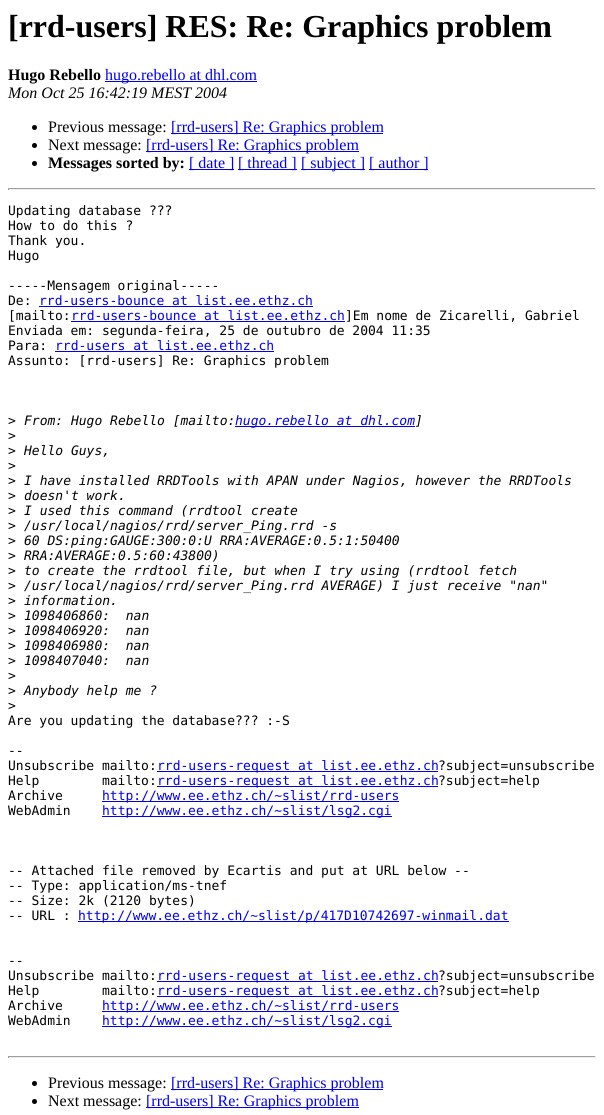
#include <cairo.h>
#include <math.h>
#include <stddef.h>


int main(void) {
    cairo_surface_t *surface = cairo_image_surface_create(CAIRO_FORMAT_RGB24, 604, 1115);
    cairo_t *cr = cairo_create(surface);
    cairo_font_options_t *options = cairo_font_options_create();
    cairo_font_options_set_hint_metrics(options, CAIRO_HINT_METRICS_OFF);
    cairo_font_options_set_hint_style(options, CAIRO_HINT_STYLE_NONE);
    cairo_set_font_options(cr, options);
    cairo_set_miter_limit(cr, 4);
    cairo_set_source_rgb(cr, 1, 1, 1);
    cairo_paint(cr);
    cairo_select_font_face(cr, "Liberation Serif", CAIRO_FONT_SLANT_NORMAL, CAIRO_FONT_WEIGHT_BOLD);
    cairo_set_font_size(cr, 32);
    cairo_set_source_rgb(cr, 0, 0, 0);
    cairo_move_to(cr, 8, 37);
    cairo_show_text(cr, "[rrd-users] RES: Re: Graphics problem");
    cairo_set_font_size(cr, 16);
    cairo_move_to(cr, 8, 80);
    cairo_show_text(cr, "Hugo Rebello");
    cairo_set_source_rgb(cr, 0, 0, 0.933);
    cairo_rectangle(cr, 105, 81, 152, 1);
    cairo_fill(cr);
    cairo_select_font_face(cr, "Liberation Serif", CAIRO_FONT_SLANT_NORMAL, CAIRO_FONT_WEIGHT_NORMAL);
    cairo_move_to(cr, 105, 80);
    cairo_show_text(cr, "hugo.rebello at dhl.com");
    cairo_select_font_face(cr, "Liberation Serif", CAIRO_FONT_SLANT_ITALIC, CAIRO_FONT_WEIGHT_NORMAL);
    cairo_set_source_rgb(cr, 0, 0, 0);
    cairo_move_to(cr, 8, 98);
    cairo_show_text(cr, "Mon Oct 25 16:42:19 MEST 2004");
    cairo_new_path(cr);
    cairo_arc(cr, 34.5, 127.5, 2.5, 0, 2 * M_PI);
    cairo_fill(cr);
    cairo_select_font_face(cr, "Liberation Serif", CAIRO_FONT_SLANT_NORMAL, CAIRO_FONT_WEIGHT_NORMAL);
    cairo_move_to(cr, 48, 132);
    cairo_show_text(cr, "Previous message:");
    cairo_set_source_rgb(cr, 0, 0, 0.933);
    cairo_rectangle(cr, 171, 133, 212, 1);
    cairo_fill(cr);
    cairo_move_to(cr, 171, 132);
    cairo_show_text(cr, "[rrd-users] Re: Graphics problem");
    cairo_set_source_rgb(cr, 0, 0, 0);
    cairo_new_path(cr);
    cairo_arc(cr, 34.5, 145.5, 2.5, 0, 2 * M_PI);
    cairo_fill(cr);
    cairo_move_to(cr, 48, 150);
    cairo_show_text(cr, "Next message:");
    cairo_set_source_rgb(cr, 0, 0, 0.933);
    cairo_rectangle(cr, 146, 151, 213, 1);
    cairo_fill(cr);
    cairo_move_to(cr, 146, 150);
    cairo_show_text(cr, "[rrd-users] Re: Graphics problem");
    cairo_set_source_rgb(cr, 0, 0, 0);
    cairo_new_path(cr);
    cairo_arc(cr, 34.5, 163.5, 2.5, 0, 2 * M_PI);
    cairo_fill(cr);
    cairo_select_font_face(cr, "Liberation Serif", CAIRO_FONT_SLANT_NORMAL, CAIRO_FONT_WEIGHT_BOLD);
    cairo_move_to(cr, 48, 168);
    cairo_show_text(cr, "Messages sorted by:");
    cairo_set_source_rgb(cr, 0, 0, 0.933);
    cairo_rectangle(cr, 189, 169, 45, 1);
    cairo_fill(cr);
    cairo_select_font_face(cr, "Liberation Serif", CAIRO_FONT_SLANT_NORMAL, CAIRO_FONT_WEIGHT_NORMAL);
    cairo_move_to(cr, 189, 168);
    cairo_show_text(cr, "[ date ]");
    cairo_rectangle(cr, 238, 169, 59, 1);
    cairo_fill(cr);
    cairo_move_to(cr, 238, 168);
    cairo_show_text(cr, "[ thread ]");
    cairo_rectangle(cr, 301, 169, 64, 1);
    cairo_fill(cr);
    cairo_move_to(cr, 301, 168);
    cairo_show_text(cr, "[ subject ]");
    cairo_rectangle(cr, 369, 169, 59, 1);
    cairo_fill(cr);
    cairo_move_to(cr, 369, 168);
    cairo_show_text(cr, "[ author ]");
    cairo_set_source_rgb(cr, 0.624, 0.624, 0.624);
    cairo_rectangle(cr, 8, 188, 588, 1);
    cairo_fill(cr);
    cairo_set_source_rgb(cr, 0.933, 0.933, 0.933);
    cairo_rectangle(cr, 595, 188, 1, 2);
    cairo_fill(cr);
    cairo_rectangle(cr, 8, 189, 588, 1);
    cairo_fill(cr);
    cairo_set_source_rgb(cr, 0.624, 0.624, 0.624);
    cairo_rectangle(cr, 8, 188, 1, 2);
    cairo_fill(cr);
    cairo_select_font_face(cr, "DejaVu Sans Mono", CAIRO_FONT_SLANT_NORMAL, CAIRO_FONT_WEIGHT_NORMAL);
    cairo_set_font_size(cr, 13);
    cairo_set_source_rgb(cr, 0, 0, 0);
    cairo_move_to(cr, 8, 215);
    cairo_show_text(cr, "Updating database ?\077?");
    cairo_move_to(cr, 8, 230);
    cairo_show_text(cr, "How to do this ?");
    cairo_move_to(cr, 8, 245);
    cairo_show_text(cr, "Thank you.");
    cairo_move_to(cr, 8, 260);
    cairo_show_text(cr, "Hugo");
    cairo_move_to(cr, 8, 290);
    cairo_show_text(cr, "-----Mensagem original-----");
    cairo_move_to(cr, 8, 305);
    cairo_show_text(cr, "De:");
    cairo_set_source_rgb(cr, 0, 0, 0.933);
    cairo_move_to(cr, 39, 305);
    cairo_show_text(cr, "rrd-users-bounce at list.ee.ethz.ch");
    cairo_rectangle(cr, 39, 306, 274, 1);
    cairo_fill(cr);
    cairo_set_source_rgb(cr, 0, 0, 0);
    cairo_move_to(cr, 8, 320);
    cairo_show_text(cr, "[mailto:");
    cairo_set_source_rgb(cr, 0, 0, 0.933);
    cairo_move_to(cr, 71, 320);
    cairo_show_text(cr, "rrd-users-bounce at list.ee.ethz.ch");
    cairo_rectangle(cr, 71, 321, 274, 1);
    cairo_fill(cr);
    cairo_set_source_rgb(cr, 0, 0, 0);
    cairo_move_to(cr, 345, 320);
    cairo_show_text(cr, "]Em nome de Zicarelli, Gabriel");
    cairo_move_to(cr, 8, 335);
    cairo_show_text(cr, "Enviada em: segunda-feira, 25 de outubro de 2004 11:35");
    cairo_move_to(cr, 8, 350);
    cairo_show_text(cr, "Para:");
    cairo_set_source_rgb(cr, 0, 0, 0.933);
    cairo_move_to(cr, 55, 350);
    cairo_show_text(cr, "rrd-users at list.ee.ethz.ch");
    cairo_rectangle(cr, 55, 351, 219, 1);
    cairo_fill(cr);
    cairo_set_source_rgb(cr, 0, 0, 0);
    cairo_move_to(cr, 8, 365);
    cairo_show_text(cr, "Assunto: [rrd-users] Re: Graphics problem");
    cairo_move_to(cr, 8, 425);
    cairo_show_text(cr, ">");
    cairo_select_font_face(cr, "DejaVu Sans Mono", CAIRO_FONT_SLANT_ITALIC, CAIRO_FONT_WEIGHT_NORMAL);
    cairo_move_to(cr, 24, 425);
    cairo_show_text(cr, "From: Hugo Rebello [mailto:");
    cairo_set_source_rgb(cr, 0, 0, 0.933);
    cairo_rectangle(cr, 235, 426, 180, 1);
    cairo_fill(cr);
    cairo_move_to(cr, 235, 425);
    cairo_show_text(cr, "hugo.rebello at dhl.com");
    cairo_set_source_rgb(cr, 0, 0, 0);
    cairo_move_to(cr, 415, 425);
    cairo_show_text(cr, "]");
    cairo_select_font_face(cr, "DejaVu Sans Mono", CAIRO_FONT_SLANT_NORMAL, CAIRO_FONT_WEIGHT_NORMAL);
    cairo_move_to(cr, 8, 440);
    cairo_show_text(cr, ">");
    cairo_move_to(cr, 8, 455);
    cairo_show_text(cr, ">");
    cairo_select_font_face(cr, "DejaVu Sans Mono", CAIRO_FONT_SLANT_ITALIC, CAIRO_FONT_WEIGHT_NORMAL);
    cairo_move_to(cr, 24, 455);
    cairo_show_text(cr, "Hello Guys,");
    cairo_select_font_face(cr, "DejaVu Sans Mono", CAIRO_FONT_SLANT_NORMAL, CAIRO_FONT_WEIGHT_NORMAL);
    cairo_move_to(cr, 8, 470);
    cairo_show_text(cr, ">");
    cairo_move_to(cr, 8, 485);
    cairo_show_text(cr, ">");
    cairo_select_font_face(cr, "DejaVu Sans Mono", CAIRO_FONT_SLANT_ITALIC, CAIRO_FONT_WEIGHT_NORMAL);
    cairo_move_to(cr, 24, 485);
    cairo_show_text(cr, "I have installed RRDTools with APAN under Nagios, however the RRDTools");
    cairo_select_font_face(cr, "DejaVu Sans Mono", CAIRO_FONT_SLANT_NORMAL, CAIRO_FONT_WEIGHT_NORMAL);
    cairo_move_to(cr, 8, 500);
    cairo_show_text(cr, ">");
    cairo_select_font_face(cr, "DejaVu Sans Mono", CAIRO_FONT_SLANT_ITALIC, CAIRO_FONT_WEIGHT_NORMAL);
    cairo_move_to(cr, 24, 500);
    cairo_show_text(cr, "doesn't work.");
    cairo_select_font_face(cr, "DejaVu Sans Mono", CAIRO_FONT_SLANT_NORMAL, CAIRO_FONT_WEIGHT_NORMAL);
    cairo_move_to(cr, 8, 515);
    cairo_show_text(cr, ">");
    cairo_select_font_face(cr, "DejaVu Sans Mono", CAIRO_FONT_SLANT_ITALIC, CAIRO_FONT_WEIGHT_NORMAL);
    cairo_move_to(cr, 24, 515);
    cairo_show_text(cr, "I used this command (rrdtool create");
    cairo_select_font_face(cr, "DejaVu Sans Mono", CAIRO_FONT_SLANT_NORMAL, CAIRO_FONT_WEIGHT_NORMAL);
    cairo_move_to(cr, 8, 530);
    cairo_show_text(cr, ">");
    cairo_select_font_face(cr, "DejaVu Sans Mono", CAIRO_FONT_SLANT_ITALIC, CAIRO_FONT_WEIGHT_NORMAL);
    cairo_move_to(cr, 24, 530);
    cairo_show_text(cr, "/usr/local/nagios/rrd/server_Ping.rrd -s");
    cairo_select_font_face(cr, "DejaVu Sans Mono", CAIRO_FONT_SLANT_NORMAL, CAIRO_FONT_WEIGHT_NORMAL);
    cairo_move_to(cr, 8, 545);
    cairo_show_text(cr, ">");
    cairo_select_font_face(cr, "DejaVu Sans Mono", CAIRO_FONT_SLANT_ITALIC, CAIRO_FONT_WEIGHT_NORMAL);
    cairo_move_to(cr, 24, 545);
    cairo_show_text(cr, "60 DS:ping:GAUGE:300:0:U RRA:AVERAGE:0.5:1:50400");
    cairo_select_font_face(cr, "DejaVu Sans Mono", CAIRO_FONT_SLANT_NORMAL, CAIRO_FONT_WEIGHT_NORMAL);
    cairo_move_to(cr, 8, 560);
    cairo_show_text(cr, ">");
    cairo_select_font_face(cr, "DejaVu Sans Mono", CAIRO_FONT_SLANT_ITALIC, CAIRO_FONT_WEIGHT_NORMAL);
    cairo_move_to(cr, 24, 560);
    cairo_show_text(cr, "RRA:AVERAGE:0.5:60:43800)");
    cairo_select_font_face(cr, "DejaVu Sans Mono", CAIRO_FONT_SLANT_NORMAL, CAIRO_FONT_WEIGHT_NORMAL);
    cairo_move_to(cr, 8, 575);
    cairo_show_text(cr, ">");
    cairo_select_font_face(cr, "DejaVu Sans Mono", CAIRO_FONT_SLANT_ITALIC, CAIRO_FONT_WEIGHT_NORMAL);
    cairo_move_to(cr, 24, 575);
    cairo_show_text(cr, "to create the rrdtool file, but when I try using (rrdtool fetch");
    cairo_select_font_face(cr, "DejaVu Sans Mono", CAIRO_FONT_SLANT_NORMAL, CAIRO_FONT_WEIGHT_NORMAL);
    cairo_move_to(cr, 8, 590);
    cairo_show_text(cr, ">");
    cairo_select_font_face(cr, "DejaVu Sans Mono", CAIRO_FONT_SLANT_ITALIC, CAIRO_FONT_WEIGHT_NORMAL);
    cairo_move_to(cr, 24, 590);
    cairo_show_text(cr, "/usr/local/nagios/rrd/server_Ping.rrd AVERAGE) I just receive \"nan\"");
    cairo_select_font_face(cr, "DejaVu Sans Mono", CAIRO_FONT_SLANT_NORMAL, CAIRO_FONT_WEIGHT_NORMAL);
    cairo_move_to(cr, 8, 605);
    cairo_show_text(cr, ">");
    cairo_select_font_face(cr, "DejaVu Sans Mono", CAIRO_FONT_SLANT_ITALIC, CAIRO_FONT_WEIGHT_NORMAL);
    cairo_move_to(cr, 24, 605);
    cairo_show_text(cr, "information.");
    cairo_select_font_face(cr, "DejaVu Sans Mono", CAIRO_FONT_SLANT_NORMAL, CAIRO_FONT_WEIGHT_NORMAL);
    cairo_move_to(cr, 8, 620);
    cairo_show_text(cr, ">");
    cairo_select_font_face(cr, "DejaVu Sans Mono", CAIRO_FONT_SLANT_ITALIC, CAIRO_FONT_WEIGHT_NORMAL);
    cairo_move_to(cr, 24, 620);
    cairo_show_text(cr, "1098406860:  nan");
    cairo_select_font_face(cr, "DejaVu Sans Mono", CAIRO_FONT_SLANT_NORMAL, CAIRO_FONT_WEIGHT_NORMAL);
    cairo_move_to(cr, 8, 635);
    cairo_show_text(cr, ">");
    cairo_select_font_face(cr, "DejaVu Sans Mono", CAIRO_FONT_SLANT_ITALIC, CAIRO_FONT_WEIGHT_NORMAL);
    cairo_move_to(cr, 24, 635);
    cairo_show_text(cr, "1098406920:  nan");
    cairo_select_font_face(cr, "DejaVu Sans Mono", CAIRO_FONT_SLANT_NORMAL, CAIRO_FONT_WEIGHT_NORMAL);
    cairo_move_to(cr, 8, 650);
    cairo_show_text(cr, ">");
    cairo_select_font_face(cr, "DejaVu Sans Mono", CAIRO_FONT_SLANT_ITALIC, CAIRO_FONT_WEIGHT_NORMAL);
    cairo_move_to(cr, 24, 650);
    cairo_show_text(cr, "1098406980:  nan");
    cairo_select_font_face(cr, "DejaVu Sans Mono", CAIRO_FONT_SLANT_NORMAL, CAIRO_FONT_WEIGHT_NORMAL);
    cairo_move_to(cr, 8, 665);
    cairo_show_text(cr, ">");
    cairo_select_font_face(cr, "DejaVu Sans Mono", CAIRO_FONT_SLANT_ITALIC, CAIRO_FONT_WEIGHT_NORMAL);
    cairo_move_to(cr, 24, 665);
    cairo_show_text(cr, "1098407040:  nan");
    cairo_select_font_face(cr, "DejaVu Sans Mono", CAIRO_FONT_SLANT_NORMAL, CAIRO_FONT_WEIGHT_NORMAL);
    cairo_move_to(cr, 8, 680);
    cairo_show_text(cr, ">");
    cairo_move_to(cr, 8, 695);
    cairo_show_text(cr, ">");
    cairo_select_font_face(cr, "DejaVu Sans Mono", CAIRO_FONT_SLANT_ITALIC, CAIRO_FONT_WEIGHT_NORMAL);
    cairo_move_to(cr, 24, 695);
    cairo_show_text(cr, "Anybody help me ?");
    cairo_select_font_face(cr, "DejaVu Sans Mono", CAIRO_FONT_SLANT_NORMAL, CAIRO_FONT_WEIGHT_NORMAL);
    cairo_move_to(cr, 8, 710);
    cairo_show_text(cr, ">");
    cairo_move_to(cr, 8, 725);
    cairo_show_text(cr, "Are you updating the database?\077? :-S");
    cairo_move_to(cr, 8, 755);
    cairo_show_text(cr, "--");
    cairo_move_to(cr, 8, 770);
    cairo_show_text(cr, "Unsubscribe mailto:");
    cairo_set_source_rgb(cr, 0, 0, 0.933);
    cairo_rectangle(cr, 157, 771, 281, 1);
    cairo_fill(cr);
    cairo_move_to(cr, 157, 770);
    cairo_show_text(cr, "rrd-users-request at list.ee.ethz.ch");
    cairo_set_source_rgb(cr, 0, 0, 0);
    cairo_move_to(cr, 438, 770);
    cairo_show_text(cr, "?subject=unsubscribe");
    cairo_move_to(cr, 8, 785);
    cairo_show_text(cr, "Help        mailto:");
    cairo_set_source_rgb(cr, 0, 0, 0.933);
    cairo_rectangle(cr, 157, 786, 281, 1);
    cairo_fill(cr);
    cairo_move_to(cr, 157, 785);
    cairo_show_text(cr, "rrd-users-request at list.ee.ethz.ch");
    cairo_set_source_rgb(cr, 0, 0, 0);
    cairo_move_to(cr, 438, 785);
    cairo_show_text(cr, "?subject=help");
    cairo_move_to(cr, 8, 800);
    cairo_show_text(cr, "Archive");
    cairo_set_source_rgb(cr, 0, 0, 0.933);
    cairo_rectangle(cr, 102, 801, 297, 1);
    cairo_fill(cr);
    cairo_move_to(cr, 102, 800);
    cairo_show_text(cr, "http://www.ee.ethz.ch/~slist/rrd-users");
    cairo_set_source_rgb(cr, 0, 0, 0);
    cairo_move_to(cr, 8, 815);
    cairo_show_text(cr, "WebAdmin");
    cairo_set_source_rgb(cr, 0, 0, 0.933);
    cairo_rectangle(cr, 102, 816, 290, 1);
    cairo_fill(cr);
    cairo_move_to(cr, 102, 815);
    cairo_show_text(cr, "http://www.ee.ethz.ch/~slist/lsg2.cgi");
    cairo_set_source_rgb(cr, 0, 0, 0);
    cairo_move_to(cr, 8, 875);
    cairo_show_text(cr, "-- Attached file removed by Ecartis and put at URL below --");
    cairo_move_to(cr, 8, 890);
    cairo_show_text(cr, "-- Type: application/ms-tnef");
    cairo_move_to(cr, 8, 905);
    cairo_show_text(cr, "-- Size: 2k (2120 bytes)");
    cairo_move_to(cr, 8, 920);
    cairo_show_text(cr, "-- URL :");
    cairo_set_source_rgb(cr, 0, 0, 0.933);
    cairo_rectangle(cr, 78, 921, 431, 1);
    cairo_fill(cr);
    cairo_move_to(cr, 78, 920);
    cairo_show_text(cr, "http://www.ee.ethz.ch/~slist/p/417D10742697-winmail.dat");
    cairo_set_source_rgb(cr, 0, 0, 0);
    cairo_move_to(cr, 8, 965);
    cairo_show_text(cr, "--");
    cairo_move_to(cr, 8, 980);
    cairo_show_text(cr, "Unsubscribe mailto:");
    cairo_set_source_rgb(cr, 0, 0, 0.933);
    cairo_rectangle(cr, 157, 981, 281, 1);
    cairo_fill(cr);
    cairo_move_to(cr, 157, 980);
    cairo_show_text(cr, "rrd-users-request at list.ee.ethz.ch");
    cairo_set_source_rgb(cr, 0, 0, 0);
    cairo_move_to(cr, 438, 980);
    cairo_show_text(cr, "?subject=unsubscribe");
    cairo_move_to(cr, 8, 995);
    cairo_show_text(cr, "Help        mailto:");
    cairo_set_source_rgb(cr, 0, 0, 0.933);
    cairo_rectangle(cr, 157, 996, 281, 1);
    cairo_fill(cr);
    cairo_move_to(cr, 157, 995);
    cairo_show_text(cr, "rrd-users-request at list.ee.ethz.ch");
    cairo_set_source_rgb(cr, 0, 0, 0);
    cairo_move_to(cr, 438, 995);
    cairo_show_text(cr, "?subject=help");
    cairo_move_to(cr, 8, 1010);
    cairo_show_text(cr, "Archive");
    cairo_set_source_rgb(cr, 0, 0, 0.933);
    cairo_rectangle(cr, 102, 1011, 297, 1);
    cairo_fill(cr);
    cairo_move_to(cr, 102, 1010);
    cairo_show_text(cr, "http://www.ee.ethz.ch/~slist/rrd-users");
    cairo_set_source_rgb(cr, 0, 0, 0);
    cairo_move_to(cr, 8, 1025);
    cairo_show_text(cr, "WebAdmin");
    cairo_set_source_rgb(cr, 0, 0, 0.933);
    cairo_rectangle(cr, 102, 1026, 290, 1);
    cairo_fill(cr);
    cairo_move_to(cr, 102, 1025);
    cairo_show_text(cr, "http://www.ee.ethz.ch/~slist/lsg2.cgi");
    cairo_set_source_rgb(cr, 0.624, 0.624, 0.624);
    cairo_rectangle(cr, 8, 1056, 588, 1);
    cairo_fill(cr);
    cairo_set_source_rgb(cr, 0.933, 0.933, 0.933);
    cairo_rectangle(cr, 595, 1056, 1, 2);
    cairo_fill(cr);
    cairo_rectangle(cr, 8, 1057, 588, 1);
    cairo_fill(cr);
    cairo_set_source_rgb(cr, 0.624, 0.624, 0.624);
    cairo_rectangle(cr, 8, 1056, 1, 2);
    cairo_fill(cr);
    cairo_set_source_rgb(cr, 0, 0, 0);
    cairo_arc(cr, 34.5, 1083.5, 2.5, 0, 2 * M_PI);
    cairo_fill(cr);
    cairo_select_font_face(cr, "Liberation Serif", CAIRO_FONT_SLANT_NORMAL, CAIRO_FONT_WEIGHT_NORMAL);
    cairo_set_font_size(cr, 16);
    cairo_move_to(cr, 48, 1088);
    cairo_show_text(cr, "Previous message:");
    cairo_set_source_rgb(cr, 0, 0, 0.933);
    cairo_rectangle(cr, 171, 1089, 212, 1);
    cairo_fill(cr);
    cairo_move_to(cr, 171, 1088);
    cairo_show_text(cr, "[rrd-users] Re: Graphics problem");
    cairo_set_source_rgb(cr, 0, 0, 0);
    cairo_new_path(cr);
    cairo_arc(cr, 34.5, 1101.5, 2.5, 0, 2 * M_PI);
    cairo_fill(cr);
    cairo_move_to(cr, 48, 1106);
    cairo_show_text(cr, "Next message:");
    cairo_set_source_rgb(cr, 0, 0, 0.933);
    cairo_rectangle(cr, 146, 1107, 213, 1);
    cairo_fill(cr);
    cairo_move_to(cr, 146, 1106);
    cairo_show_text(cr, "[rrd-users] Re: Graphics problem");
    cairo_surface_write_to_png(surface, "page.png");
    cairo_font_options_destroy(options);
    cairo_destroy(cr);
    cairo_surface_destroy(surface);
    return 0;
}
